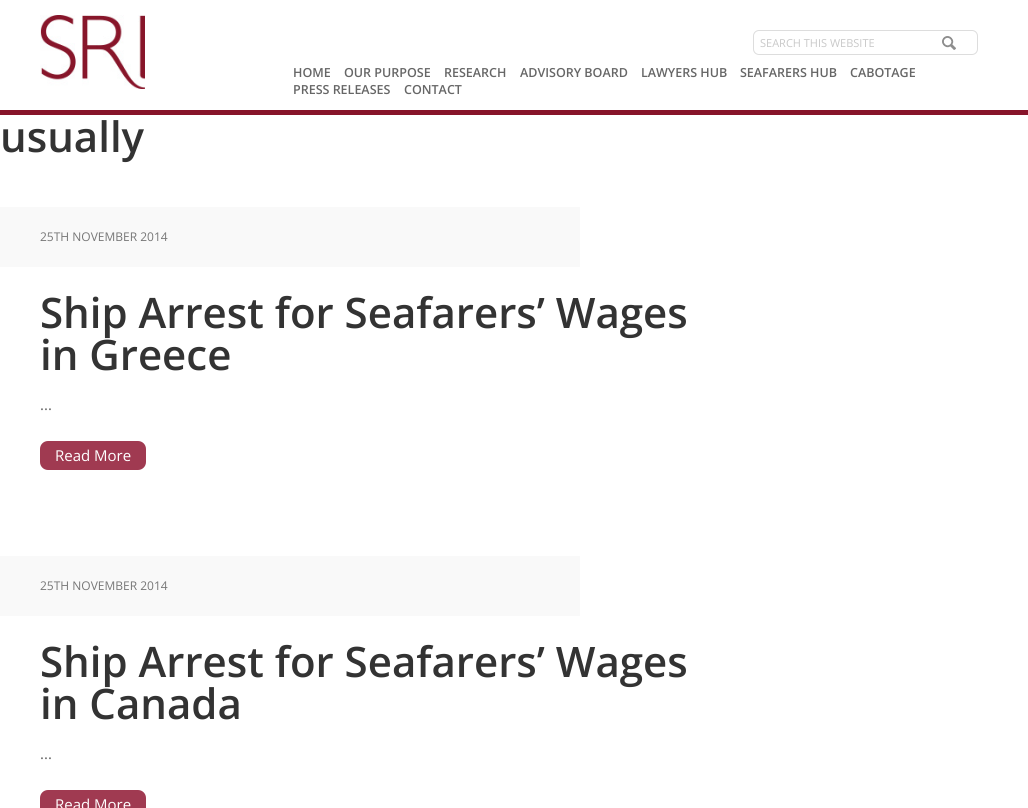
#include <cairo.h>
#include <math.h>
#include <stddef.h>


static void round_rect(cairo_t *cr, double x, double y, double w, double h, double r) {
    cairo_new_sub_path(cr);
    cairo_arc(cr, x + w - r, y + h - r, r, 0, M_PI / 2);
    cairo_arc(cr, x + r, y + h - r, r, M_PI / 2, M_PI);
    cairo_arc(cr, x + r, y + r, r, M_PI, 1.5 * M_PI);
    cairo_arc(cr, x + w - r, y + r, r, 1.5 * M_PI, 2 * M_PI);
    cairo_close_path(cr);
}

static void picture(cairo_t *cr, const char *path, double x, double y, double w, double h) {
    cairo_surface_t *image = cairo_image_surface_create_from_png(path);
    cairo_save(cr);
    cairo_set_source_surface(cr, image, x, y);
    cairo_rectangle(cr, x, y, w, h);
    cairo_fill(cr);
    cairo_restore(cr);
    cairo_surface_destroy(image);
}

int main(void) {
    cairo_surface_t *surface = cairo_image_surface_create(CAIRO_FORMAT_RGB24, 1028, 808);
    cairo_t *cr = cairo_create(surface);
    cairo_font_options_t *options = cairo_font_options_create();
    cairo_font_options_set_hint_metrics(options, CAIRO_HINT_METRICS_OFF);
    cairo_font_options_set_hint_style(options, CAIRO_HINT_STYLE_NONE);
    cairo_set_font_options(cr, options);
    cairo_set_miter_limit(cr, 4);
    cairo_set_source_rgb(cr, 1, 1, 1);
    cairo_paint(cr);
    cairo_set_source_rgb(cr, 0.529, 0.082, 0.165);
    cairo_rectangle(cr, 0, 110, 1028, 5);
    cairo_fill(cr);
    picture(cr, "img1.png", 40, 15, 105, 74);
    picture(cr, "img2.png", 942, 36, 14, 14);
    round_rect(cr, 753.5, 30.5, 224, 24, 5.5);
    cairo_set_source_rgb(cr, 0.867, 0.867, 0.867);
    cairo_set_line_width(cr, 1);
    cairo_stroke(cr);
    cairo_select_font_face(cr, "Open Sans", CAIRO_FONT_SLANT_NORMAL, CAIRO_FONT_WEIGHT_NORMAL);
    cairo_set_font_size(cr, 11);
    cairo_set_source_rgb(cr, 0.784, 0.784, 0.784);
    cairo_move_to(cr, 760, 47);
    cairo_show_text(cr, "SEARCH THIS WEBSITE");
    cairo_select_font_face(cr, "Open Sans SemiBold", CAIRO_FONT_SLANT_NORMAL, CAIRO_FONT_WEIGHT_NORMAL);
    cairo_set_font_size(cr, 12.5);
    cairo_set_source_rgb(cr, 0.4, 0.4, 0.4);
    cairo_move_to(cr, 293, 77);
    cairo_show_text(cr, "HOME");
    cairo_move_to(cr, 344, 77);
    cairo_show_text(cr, "OUR PURPOSE");
    cairo_move_to(cr, 444, 77);
    cairo_show_text(cr, "RESEARCH");
    cairo_move_to(cr, 520, 77);
    cairo_show_text(cr, "ADVISORY BOARD");
    cairo_move_to(cr, 641, 77);
    cairo_show_text(cr, "LAWYERS HUB");
    cairo_move_to(cr, 740, 77);
    cairo_show_text(cr, "SEAFARERS HUB");
    cairo_move_to(cr, 850, 77);
    cairo_show_text(cr, "CABOTAGE");
    cairo_move_to(cr, 293, 94);
    cairo_show_text(cr, "PRESS RELEASES");
    cairo_move_to(cr, 404, 94);
    cairo_show_text(cr, "CONTACT");
    cairo_set_font_size(cr, 42);
    cairo_set_source_rgb(cr, 0.2, 0.2, 0.2);
    cairo_move_to(cr, 0, 152);
    cairo_show_text(cr, "usually");
    cairo_set_source_rgb(cr, 0.973, 0.973, 0.973);
    cairo_rectangle(cr, 0, 207, 580, 60);
    cairo_fill(cr);
    cairo_select_font_face(cr, "Open Sans", CAIRO_FONT_SLANT_NORMAL, CAIRO_FONT_WEIGHT_NORMAL);
    cairo_set_font_size(cr, 12);
    cairo_set_source_rgb(cr, 0.467, 0.467, 0.467);
    cairo_move_to(cr, 40, 241);
    cairo_show_text(cr, "25TH NOVEMBER 2014");
    cairo_select_font_face(cr, "Open Sans SemiBold", CAIRO_FONT_SLANT_NORMAL, CAIRO_FONT_WEIGHT_NORMAL);
    cairo_set_font_size(cr, 42);
    cairo_set_source_rgb(cr, 0.2, 0.2, 0.2);
    cairo_move_to(cr, 40, 328);
    cairo_show_text(cr, "Ship Arrest for Seafarers’ Wages");
    cairo_move_to(cr, 40, 370);
    cairo_show_text(cr, "in Greece");
    cairo_select_font_face(cr, "Open Sans", CAIRO_FONT_SLANT_NORMAL, CAIRO_FONT_WEIGHT_NORMAL);
    cairo_set_font_size(cr, 15);
    cairo_set_source_rgb(cr, 0.4, 0.4, 0.4);
    cairo_move_to(cr, 40, 410);
    cairo_show_text(cr, "...");
    cairo_set_source_rgb(cr, 0.627, 0.227, 0.318);
    round_rect(cr, 40, 441, 106, 29, 8);
    cairo_fill(cr);
    cairo_set_source_rgb(cr, 1, 1, 1);
    cairo_move_to(cr, 55, 461);
    cairo_show_text(cr, "Read More");
    cairo_set_source_rgb(cr, 0.973, 0.973, 0.973);
    cairo_rectangle(cr, 0, 556, 580, 60);
    cairo_fill(cr);
    cairo_set_font_size(cr, 12);
    cairo_set_source_rgb(cr, 0.467, 0.467, 0.467);
    cairo_move_to(cr, 40, 590);
    cairo_show_text(cr, "25TH NOVEMBER 2014");
    cairo_select_font_face(cr, "Open Sans SemiBold", CAIRO_FONT_SLANT_NORMAL, CAIRO_FONT_WEIGHT_NORMAL);
    cairo_set_font_size(cr, 42);
    cairo_set_source_rgb(cr, 0.2, 0.2, 0.2);
    cairo_move_to(cr, 40, 677);
    cairo_show_text(cr, "Ship Arrest for Seafarers’ Wages");
    cairo_move_to(cr, 40, 719);
    cairo_show_text(cr, "in Canada");
    cairo_select_font_face(cr, "Open Sans", CAIRO_FONT_SLANT_NORMAL, CAIRO_FONT_WEIGHT_NORMAL);
    cairo_set_font_size(cr, 15);
    cairo_set_source_rgb(cr, 0.4, 0.4, 0.4);
    cairo_move_to(cr, 40, 759);
    cairo_show_text(cr, "...");
    cairo_set_source_rgb(cr, 0.627, 0.227, 0.318);
    round_rect(cr, 40, 790, 106, 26, 8);
    cairo_fill(cr);
    cairo_set_source_rgb(cr, 1, 1, 1);
    cairo_move_to(cr, 55, 810);
    cairo_show_text(cr, "Read More");
    cairo_surface_write_to_png(surface, "page.png");
    cairo_font_options_destroy(options);
    cairo_destroy(cr);
    cairo_surface_destroy(surface);
    return 0;
}
